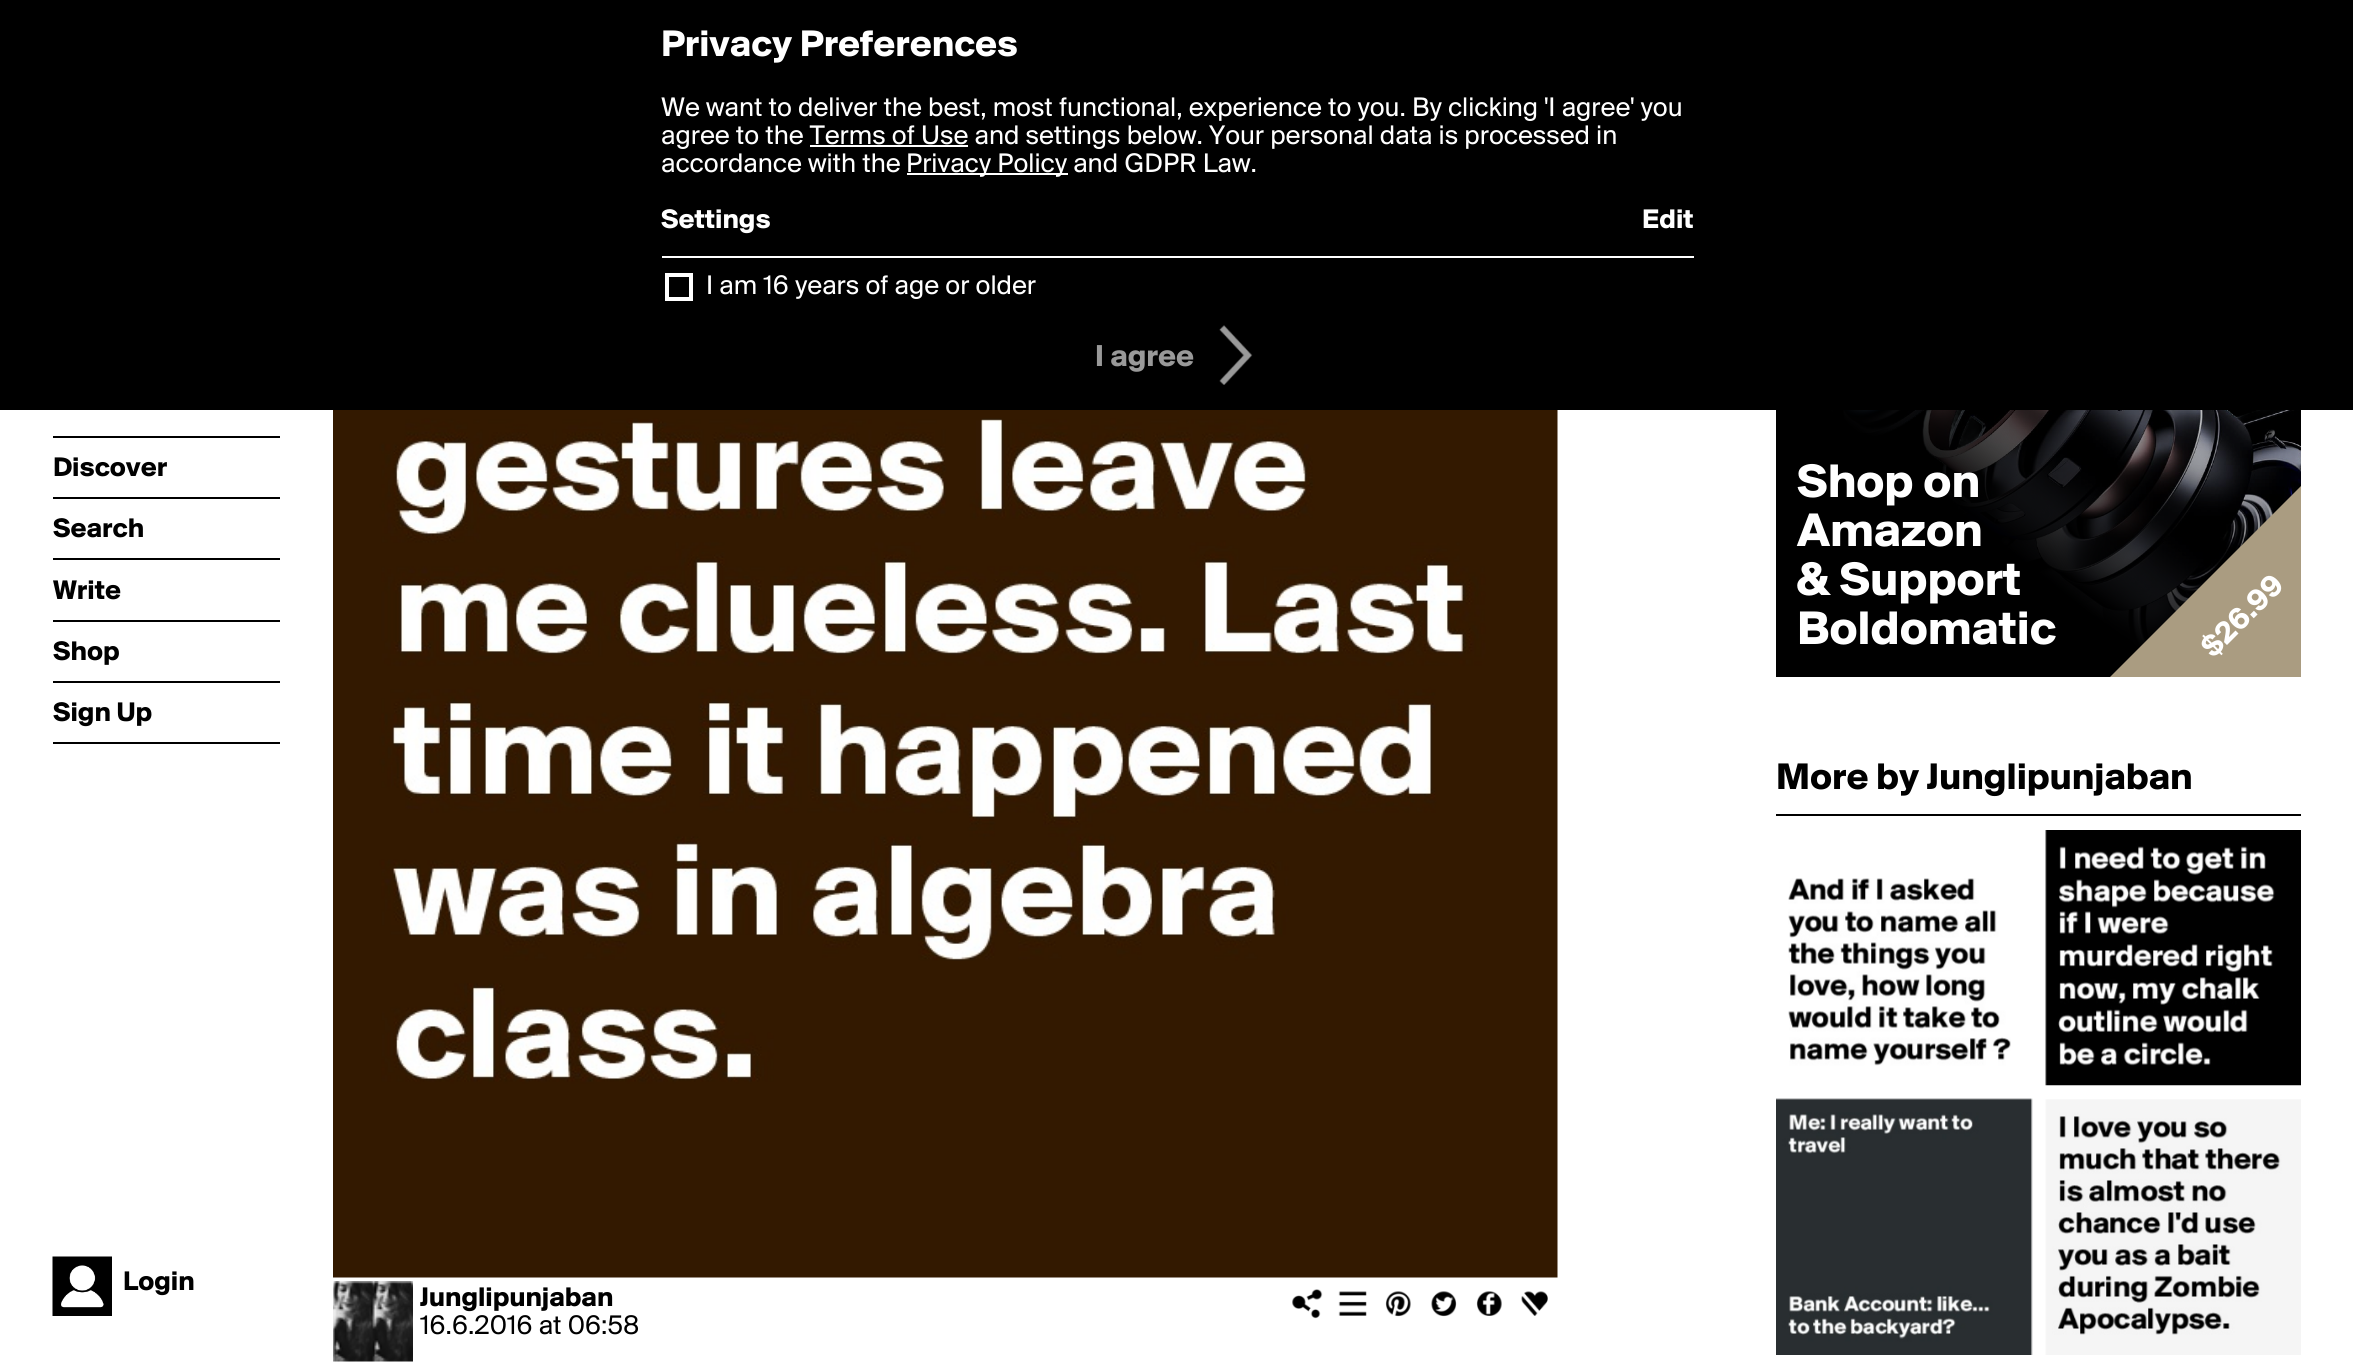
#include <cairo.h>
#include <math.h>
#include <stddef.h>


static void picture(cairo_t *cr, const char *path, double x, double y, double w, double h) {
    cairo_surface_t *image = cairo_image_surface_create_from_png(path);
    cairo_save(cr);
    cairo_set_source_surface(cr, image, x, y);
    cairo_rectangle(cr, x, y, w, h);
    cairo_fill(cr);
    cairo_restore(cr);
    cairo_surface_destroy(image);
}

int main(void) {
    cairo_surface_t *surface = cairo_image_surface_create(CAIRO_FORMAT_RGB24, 2353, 1367);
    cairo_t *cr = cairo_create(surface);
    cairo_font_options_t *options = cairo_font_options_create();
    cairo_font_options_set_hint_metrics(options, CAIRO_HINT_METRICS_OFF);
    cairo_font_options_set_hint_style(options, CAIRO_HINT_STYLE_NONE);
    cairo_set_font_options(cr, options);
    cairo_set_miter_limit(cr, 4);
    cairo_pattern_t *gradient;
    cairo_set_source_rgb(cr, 1, 1, 1);
    cairo_paint(cr);
    cairo_set_source_rgb(cr, 0, 0, 0);
    cairo_rectangle(cr, 0, 0, 2353, 410);
    cairo_fill(cr);
    cairo_select_font_face(cr, "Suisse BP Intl", CAIRO_FONT_SLANT_NORMAL, CAIRO_FONT_WEIGHT_BOLD);
    cairo_set_font_size(cr, 38.5);
    cairo_set_source_rgb(cr, 1, 1, 1);
    cairo_move_to(cr, 661, 56);
    cairo_show_text(cr, "Privacy Preferences");
    cairo_select_font_face(cr, "Suisse BP Intl", CAIRO_FONT_SLANT_NORMAL, CAIRO_FONT_WEIGHT_NORMAL);
    cairo_set_font_size(cr, 28);
    cairo_move_to(cr, 661, 116);
    cairo_show_text(cr, "We want to deliver the best, most functional, experience to you. By clicking 'I agree' you");
    cairo_move_to(cr, 661, 144);
    cairo_show_text(cr, "agree to the Terms of Use and settings below. Your personal data is processed in");
    cairo_rectangle(cr, 810, 145, 158, 2);
    cairo_fill(cr);
    cairo_move_to(cr, 661, 172);
    cairo_show_text(cr, "accordance with the");
    cairo_rectangle(cr, 907, 173, 161, 2);
    cairo_fill(cr);
    cairo_move_to(cr, 906, 172);
    cairo_show_text(cr, "Privacy Policy and GDPR Law.");
    cairo_select_font_face(cr, "Suisse BP Intl", CAIRO_FONT_SLANT_NORMAL, CAIRO_FONT_WEIGHT_BOLD);
    cairo_move_to(cr, 661, 228);
    cairo_show_text(cr, "Settings");
    cairo_move_to(cr, 1642, 228);
    cairo_show_text(cr, "Edit");
    cairo_rectangle(cr, 662, 256, 1032, 2);
    cairo_fill(cr);
    cairo_rectangle(cr, 667, 275, 24, 24);
    cairo_set_line_width(cr, 4);
    cairo_stroke(cr);
    cairo_select_font_face(cr, "Suisse BP Intl", CAIRO_FONT_SLANT_NORMAL, CAIRO_FONT_WEIGHT_NORMAL);
    cairo_move_to(cr, 706, 294);
    cairo_show_text(cr, "I am 16 years of age or older");
    cairo_select_font_face(cr, "Suisse BP Intl", CAIRO_FONT_SLANT_NORMAL, CAIRO_FONT_WEIGHT_BOLD);
    cairo_set_font_size(cr, 31.5);
    cairo_set_source_rgb(cr, 0.6, 0.6, 0.6);
    cairo_move_to(cr, 1095, 366);
    cairo_show_text(cr, "I agree");
    picture(cr, "img1.png", 1219, 325, 34, 60);
    cairo_set_source_rgb(cr, 0, 0, 0);
    cairo_rectangle(cr, 53, 436, 227, 2);
    cairo_fill(cr);
    cairo_rectangle(cr, 53, 497, 227, 2);
    cairo_fill(cr);
    cairo_set_font_size(cr, 28);
    cairo_move_to(cr, 53, 476);
    cairo_show_text(cr, "Discover");
    cairo_rectangle(cr, 53, 558, 227, 2);
    cairo_fill(cr);
    cairo_move_to(cr, 53, 537);
    cairo_show_text(cr, "Search");
    cairo_rectangle(cr, 53, 620, 227, 2);
    cairo_fill(cr);
    cairo_move_to(cr, 53, 599);
    cairo_show_text(cr, "Write");
    cairo_rectangle(cr, 53, 681, 227, 2);
    cairo_fill(cr);
    cairo_move_to(cr, 53, 660);
    cairo_show_text(cr, "Shop");
    cairo_rectangle(cr, 53, 742, 227, 2);
    cairo_fill(cr);
    cairo_move_to(cr, 53, 721);
    cairo_show_text(cr, "Sign Up");
    picture(cr, "img2.png", 52, 1256, 60, 60);
    cairo_move_to(cr, 123, 1290);
    cairo_show_text(cr, "Login");
    cairo_rectangle(cr, 1833, 410, 468, 239);
    cairo_fill(cr);
    picture(cr, "img3.png", 1843, 410, 458, 239);
    gradient = cairo_pattern_create_linear(2266, 124, 1812, 705);
    cairo_pattern_add_color_stop_rgba(gradient, 0.29, 0, 0, 0, 0);
    cairo_pattern_add_color_stop_rgba(gradient, 0.67, 0, 0, 0, 1);
    cairo_set_source(cr, gradient);
    cairo_pattern_destroy(gradient);
    cairo_rectangle(cr, 1776, 410, 525, 267);
    cairo_fill(cr);
    cairo_set_font_size(cr, 49);
    cairo_set_source_rgb(cr, 1, 1, 1);
    cairo_move_to(cr, 1797, 497);
    cairo_show_text(cr, "Shop on");
    cairo_move_to(cr, 1797, 546);
    cairo_show_text(cr, "Amazon");
    cairo_move_to(cr, 1797, 595);
    cairo_show_text(cr, "& Support");
    cairo_move_to(cr, 1797, 644);
    cairo_show_text(cr, "Boldomatic");
    cairo_save(cr);
    cairo_rectangle(cr, 1776, 152, 525, 525);
    cairo_clip(cr);
    cairo_set_source_rgb(cr, 0.667, 0.612, 0.506);
    cairo_new_path(cr);
    cairo_move_to(cr, 2085, 702);
    cairo_line_to(cr, 2329, 458);
    cairo_line_to(cr, 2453, 582);
    cairo_line_to(cr, 2209, 826);
    cairo_close_path(cr);
    cairo_fill(cr);
    cairo_restore(cr);
    cairo_set_font_size(cr, 31.5);
    cairo_save(cr);
    cairo_translate(cr, 2213, 659);
    cairo_rotate(cr, -45 * M_PI / 180);
    cairo_move_to(cr, 0, 0);
    cairo_show_text(cr, "$26.99");
    cairo_restore(cr);
    cairo_set_source_rgb(cr, 0, 0, 0);
    cairo_rectangle(cr, 1776, 814, 525, 2);
    cairo_fill(cr);
    cairo_set_font_size(cr, 38.5);
    cairo_move_to(cr, 1776, 789);
    cairo_show_text(cr, "More by Junglipunjaban");
    picture(cr, "img4.png", 1788, 878, 223, 188);
    picture(cr, "img5.png", 2045, 830, 256, 256);
    picture(cr, "img6.png", 1776, 1098, 257, 257);
    picture(cr, "img7.png", 2045, 1099, 256, 256);
    picture(cr, "img8.png", 333, 410, 1225, 868);
    picture(cr, "img9.png", 333, 1281, 80, 81);
    cairo_set_font_size(cr, 28);
    cairo_move_to(cr, 420, 1306);
    cairo_show_text(cr, "Junglipunjaban");
    cairo_select_font_face(cr, "Suisse BP Intl", CAIRO_FONT_SLANT_NORMAL, CAIRO_FONT_WEIGHT_NORMAL);
    cairo_move_to(cr, 420, 1334);
    cairo_show_text(cr, "16.6.2016 at 06:58");
    picture(cr, "img10.png", 1292, 1289, 31, 30);
    picture(cr, "img11.png", 1338, 1291, 29, 25);
    picture(cr, "img12.png", 1385, 1291, 26, 26);
    picture(cr, "img13.png", 1431, 1291, 26, 26);
    picture(cr, "img14.png", 1476, 1291, 26, 25);
    picture(cr, "img15.png", 1521, 1291, 27, 25);
    cairo_surface_write_to_png(surface, "page.png");
    cairo_font_options_destroy(options);
    cairo_destroy(cr);
    cairo_surface_destroy(surface);
    return 0;
}
